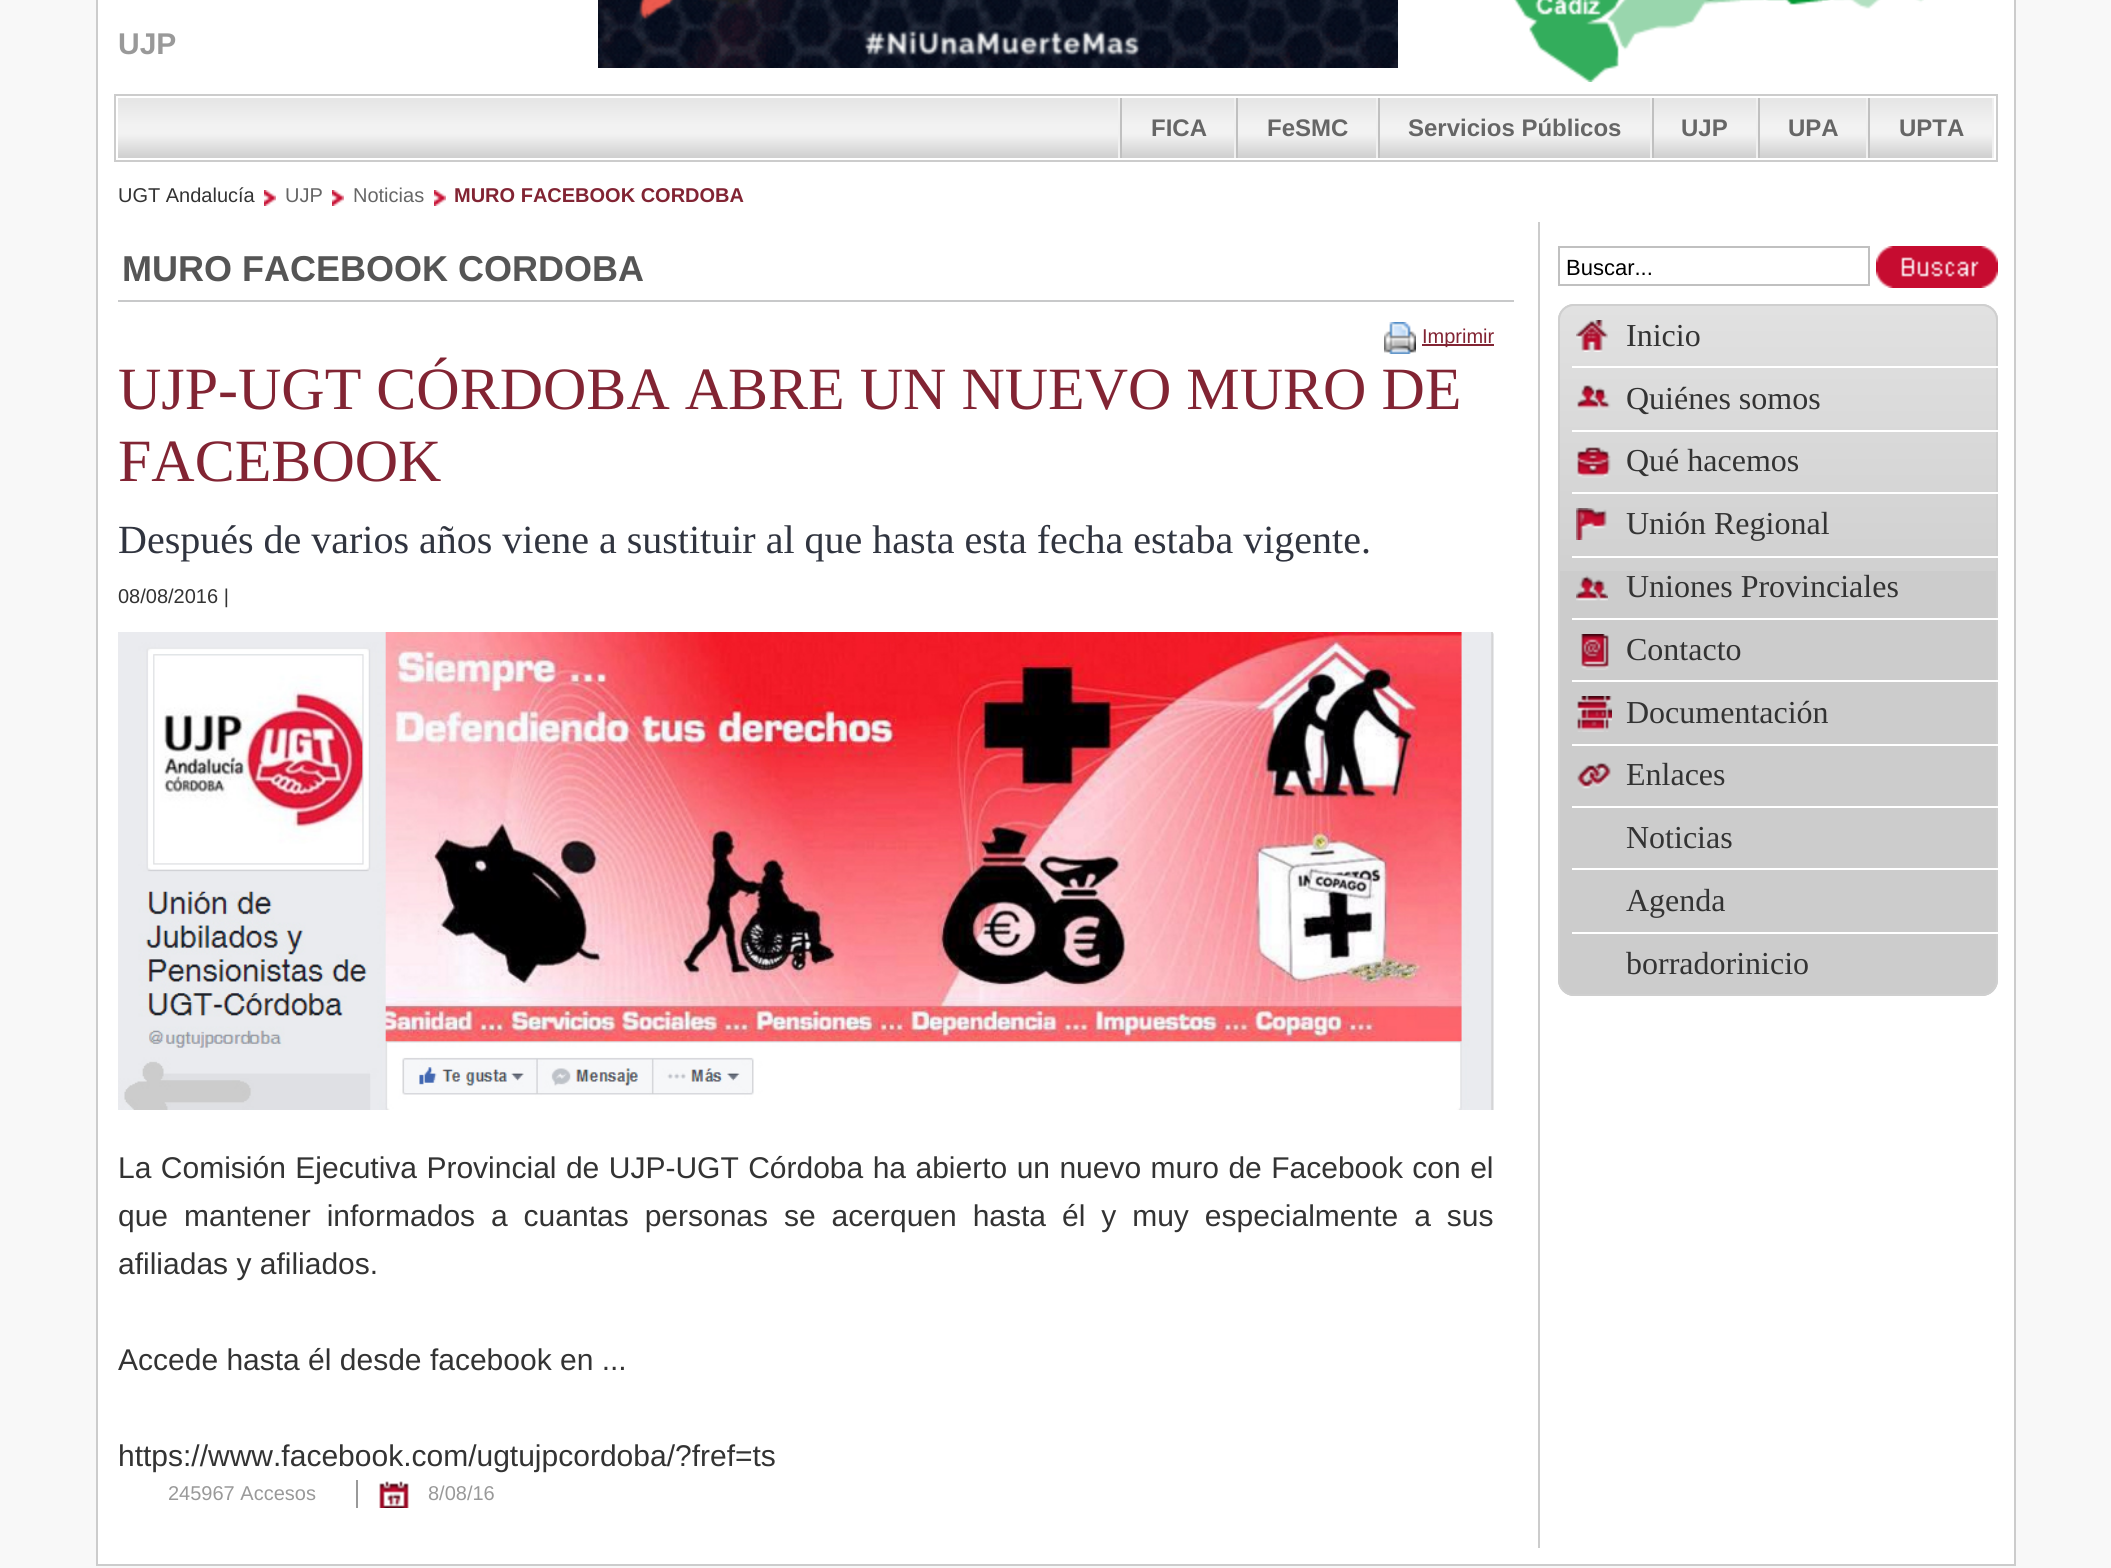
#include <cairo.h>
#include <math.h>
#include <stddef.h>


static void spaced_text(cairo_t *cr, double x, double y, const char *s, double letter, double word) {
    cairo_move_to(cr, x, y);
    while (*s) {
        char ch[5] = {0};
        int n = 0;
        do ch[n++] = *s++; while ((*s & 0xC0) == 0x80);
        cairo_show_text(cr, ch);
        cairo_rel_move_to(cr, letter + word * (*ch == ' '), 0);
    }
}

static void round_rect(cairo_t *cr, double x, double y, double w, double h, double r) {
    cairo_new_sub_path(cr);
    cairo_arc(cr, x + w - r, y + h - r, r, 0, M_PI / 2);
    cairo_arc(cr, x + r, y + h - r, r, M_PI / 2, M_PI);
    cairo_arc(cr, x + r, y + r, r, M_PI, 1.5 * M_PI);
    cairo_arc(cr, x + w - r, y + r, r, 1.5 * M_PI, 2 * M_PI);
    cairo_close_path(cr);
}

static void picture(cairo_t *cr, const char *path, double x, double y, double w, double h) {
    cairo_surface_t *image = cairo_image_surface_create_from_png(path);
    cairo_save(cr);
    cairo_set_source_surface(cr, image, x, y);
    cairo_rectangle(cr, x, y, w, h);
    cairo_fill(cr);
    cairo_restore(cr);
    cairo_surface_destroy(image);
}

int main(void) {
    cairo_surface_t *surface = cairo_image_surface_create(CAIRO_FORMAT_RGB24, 2111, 1568);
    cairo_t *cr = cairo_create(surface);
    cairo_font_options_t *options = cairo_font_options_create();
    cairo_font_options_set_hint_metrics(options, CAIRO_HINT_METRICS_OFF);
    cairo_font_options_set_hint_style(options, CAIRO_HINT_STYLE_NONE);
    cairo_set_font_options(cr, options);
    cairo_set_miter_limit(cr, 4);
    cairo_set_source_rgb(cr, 0.969, 0.969, 0.969);
    cairo_paint(cr);
    cairo_set_source_rgb(cr, 1, 1, 1);
    cairo_rectangle(cr, 98, 0, 1916, 1564);
    cairo_fill(cr);
    cairo_select_font_face(cr, "Liberation Sans", CAIRO_FONT_SLANT_NORMAL, CAIRO_FONT_WEIGHT_BOLD);
    cairo_set_font_size(cr, 30);
    cairo_set_source_rgb(cr, 0.6, 0.6, 0.6);
    cairo_move_to(cr, 118, 54);
    cairo_show_text(cr, "UJP");
    picture(cr, "img1.png", 598, 0, 800, 68);
    picture(cr, "img2.png", 1514, 0, 410, 82);
    cairo_rectangle(cr, 115, 95, 1882, 66);
    cairo_set_source_rgb(cr, 0.8, 0.8, 0.8);
    cairo_stroke(cr);
    picture(cr, "img3.png", 118, 98, 1874, 60);
    cairo_set_source_rgb(cr, 0.941, 0.941, 0.941);
    cairo_rectangle(cr, 1118, 98, 2, 60);
    cairo_fill(cr);
    cairo_rectangle(cr, 1234, 98, 2, 60);
    cairo_fill(cr);
    cairo_set_source_rgb(cr, 0.753, 0.753, 0.753);
    cairo_rectangle(cr, 1120, 98, 2, 60);
    cairo_fill(cr);
    cairo_set_font_size(cr, 24);
    cairo_set_source_rgb(cr, 0.4, 0.4, 0.4);
    cairo_move_to(cr, 1151, 136);
    cairo_show_text(cr, "FICA");
    cairo_set_source_rgb(cr, 0.941, 0.941, 0.941);
    cairo_rectangle(cr, 1376, 98, 2, 60);
    cairo_fill(cr);
    cairo_set_source_rgb(cr, 0.753, 0.753, 0.753);
    cairo_rectangle(cr, 1236, 98, 2, 60);
    cairo_fill(cr);
    cairo_set_source_rgb(cr, 0.4, 0.4, 0.4);
    cairo_move_to(cr, 1267, 136);
    cairo_show_text(cr, "FeSMC");
    cairo_set_source_rgb(cr, 0.941, 0.941, 0.941);
    cairo_rectangle(cr, 1650, 98, 2, 60);
    cairo_fill(cr);
    cairo_set_source_rgb(cr, 0.753, 0.753, 0.753);
    cairo_rectangle(cr, 1378, 98, 2, 60);
    cairo_fill(cr);
    cairo_set_source_rgb(cr, 0.4, 0.4, 0.4);
    cairo_move_to(cr, 1408, 136);
    cairo_show_text(cr, "Servicios Públicos");
    cairo_set_source_rgb(cr, 0.941, 0.941, 0.941);
    cairo_rectangle(cr, 1756, 98, 2, 60);
    cairo_fill(cr);
    cairo_set_source_rgb(cr, 0.753, 0.753, 0.753);
    cairo_rectangle(cr, 1652, 98, 2, 60);
    cairo_fill(cr);
    cairo_set_source_rgb(cr, 0.4, 0.4, 0.4);
    cairo_move_to(cr, 1681, 136);
    cairo_show_text(cr, "UJP");
    cairo_set_source_rgb(cr, 0.941, 0.941, 0.941);
    cairo_rectangle(cr, 1866, 98, 2, 60);
    cairo_fill(cr);
    cairo_set_source_rgb(cr, 0.753, 0.753, 0.753);
    cairo_rectangle(cr, 1758, 98, 2, 60);
    cairo_fill(cr);
    cairo_set_source_rgb(cr, 0.4, 0.4, 0.4);
    cairo_move_to(cr, 1788, 136);
    cairo_show_text(cr, "UPA");
    cairo_set_source_rgb(cr, 0.941, 0.941, 0.941);
    cairo_rectangle(cr, 1992, 98, 2, 60);
    cairo_fill(cr);
    cairo_set_source_rgb(cr, 0.753, 0.753, 0.753);
    cairo_rectangle(cr, 1868, 98, 2, 60);
    cairo_fill(cr);
    cairo_set_source_rgb(cr, 0.4, 0.4, 0.4);
    cairo_move_to(cr, 1899, 136);
    cairo_show_text(cr, "UPTA");
    cairo_select_font_face(cr, "Liberation Sans", CAIRO_FONT_SLANT_NORMAL, CAIRO_FONT_WEIGHT_NORMAL);
    cairo_set_font_size(cr, 20);
    cairo_set_source_rgb(cr, 0.2, 0.2, 0.2);
    cairo_move_to(cr, 118, 202);
    cairo_show_text(cr, "UGT Andalucía");
    picture(cr, "img4.png", 264, 190, 12, 16);
    cairo_set_source_rgb(cr, 0.4, 0.4, 0.4);
    cairo_move_to(cr, 285, 202);
    cairo_show_text(cr, "UJP");
    picture(cr, "img4.png", 332, 190, 12, 16);
    cairo_move_to(cr, 353, 202);
    cairo_show_text(cr, "Noticias");
    picture(cr, "img4.png", 434, 190, 12, 16);
    cairo_select_font_face(cr, "Liberation Sans", CAIRO_FONT_SLANT_NORMAL, CAIRO_FONT_WEIGHT_BOLD);
    cairo_set_source_rgb(cr, 0.51, 0.141, 0.2);
    cairo_move_to(cr, 454, 202);
    cairo_show_text(cr, "MURO FACEBOOK CORDOBA");
    cairo_set_source_rgb(cr, 0.8, 0.8, 0.8);
    cairo_rectangle(cr, 2014, 0, 2, 1566);
    cairo_fill(cr);
    cairo_rectangle(cr, 96, 1564, 1920, 2);
    cairo_fill(cr);
    cairo_rectangle(cr, 96, 0, 2, 1566);
    cairo_fill(cr);
    cairo_rectangle(cr, 1538, 222, 2, 1326);
    cairo_fill(cr);
    cairo_set_source_rgb(cr, 0.784, 0.788, 0.792);
    cairo_rectangle(cr, 118, 300, 1396, 2);
    cairo_fill(cr);
    cairo_set_font_size(cr, 36);
    cairo_set_source_rgb(cr, 0.333, 0.333, 0.333);
    cairo_move_to(cr, 122, 281);
    cairo_show_text(cr, "MURO FACEBOOK CORDOBA");
    picture(cr, "img5.png", 1384, 322, 32, 32);
    cairo_set_source_rgb(cr, 0.51, 0.141, 0.2);
    cairo_rectangle(cr, 1422, 344, 72, 2);
    cairo_fill(cr);
    cairo_select_font_face(cr, "Liberation Sans", CAIRO_FONT_SLANT_NORMAL, CAIRO_FONT_WEIGHT_NORMAL);
    cairo_set_font_size(cr, 20);
    cairo_move_to(cr, 1422, 343);
    cairo_show_text(cr, "Imprimir");
    cairo_select_font_face(cr, "Liberation Serif", CAIRO_FONT_SLANT_NORMAL, CAIRO_FONT_WEIGHT_NORMAL);
    cairo_set_font_size(cr, 60);
    cairo_move_to(cr, 118, 409);
    cairo_show_text(cr, "UJP-UGT CÓRDOBA ABRE UN NUEVO MURO DE");
    cairo_move_to(cr, 118, 481);
    cairo_show_text(cr, "FACEBOOK");
    cairo_set_font_size(cr, 40);
    cairo_set_source_rgb(cr, 0.188, 0.204, 0.247);
    cairo_move_to(cr, 118, 553);
    cairo_show_text(cr, "Después de varios años viene a sustituir al que hasta esta fecha estaba vigente.");
    cairo_select_font_face(cr, "Liberation Sans", CAIRO_FONT_SLANT_NORMAL, CAIRO_FONT_WEIGHT_NORMAL);
    cairo_set_font_size(cr, 20);
    cairo_set_source_rgb(cr, 0.2, 0.2, 0.2);
    cairo_move_to(cr, 118, 603);
    cairo_show_text(cr, "08/08/2016 |");
    picture(cr, "img6.png", 118, 632, 1376, 478);
    cairo_set_font_size(cr, 30);
    spaced_text(cr, 118, 1178, "La Comisión Ejecutiva Provincial de UJP-UGT Córdoba ha abierto un nuevo muro de Facebook con el", 0, 1.1);
    spaced_text(cr, 118, 1226, "que mantener informados a cuantas personas se acerquen hasta él y muy especialmente a sus", 0, 7.6);
    cairo_move_to(cr, 118, 1274);
    cairo_show_text(cr, "afiliadas y afiliados.");
    cairo_move_to(cr, 118, 1370);
    cairo_show_text(cr, "Accede hasta él desde facebook en ...");
    cairo_move_to(cr, 118, 1466);
    cairo_show_text(cr, "https://www.facebook.com/ugtujpcordoba/?fref=ts");
    cairo_set_font_size(cr, 20);
    cairo_set_source_rgb(cr, 0.6, 0.6, 0.6);
    cairo_move_to(cr, 168, 1500);
    cairo_show_text(cr, "245967 Accesos");
    cairo_rectangle(cr, 356, 1480, 2, 28);
    cairo_fill(cr);
    picture(cr, "img7.png", 379, 1481, 30, 27);
    cairo_move_to(cr, 428, 1500);
    cairo_show_text(cr, "8/08/16");
    cairo_rectangle(cr, 1559, 247, 310, 38);
    cairo_set_source_rgb(cr, 0.753, 0.753, 0.753);
    cairo_stroke(cr);
    cairo_set_font_size(cr, 22);
    cairo_set_source_rgb(cr, 0, 0, 0);
    cairo_move_to(cr, 1566, 275);
    cairo_show_text(cr, "Buscar...");
    picture(cr, "img8.png", 1876, 246, 122, 42);
    cairo_set_source_rgb(cr, 0.8, 0.8, 0.8);
    round_rect(cr, 1558, 304, 440, 692, 16);
    cairo_fill(cr);
    picture(cr, "img9.png", 1558, 306, 440, 265);
    round_rect(cr, 1559, 305, 438, 690, 15);
    cairo_set_source_rgb(cr, 0.812, 0.812, 0.812);
    cairo_stroke(cr);
    picture(cr, "img10.png", 1576, 320, 32, 32);
    cairo_select_font_face(cr, "Liberation Serif", CAIRO_FONT_SLANT_NORMAL, CAIRO_FONT_WEIGHT_NORMAL);
    cairo_set_font_size(cr, 32);
    cairo_set_source_rgb(cr, 0.2, 0.2, 0.2);
    cairo_move_to(cr, 1626, 346);
    cairo_show_text(cr, "Inicio");
    cairo_set_source_rgb(cr, 1, 1, 1);
    cairo_rectangle(cr, 1572, 366, 426, 2);
    cairo_fill(cr);
    picture(cr, "img11.png", 1577, 385, 34, 25);
    cairo_set_source_rgb(cr, 0.2, 0.2, 0.2);
    cairo_move_to(cr, 1626, 409);
    cairo_show_text(cr, "Quiénes somos");
    cairo_set_source_rgb(cr, 1, 1, 1);
    cairo_rectangle(cr, 1572, 430, 426, 2);
    cairo_fill(cr);
    picture(cr, "img12.png", 1577, 447, 34, 31);
    cairo_set_source_rgb(cr, 0.2, 0.2, 0.2);
    cairo_move_to(cr, 1626, 471);
    cairo_show_text(cr, "Qué hacemos");
    cairo_set_source_rgb(cr, 1, 1, 1);
    cairo_rectangle(cr, 1572, 492, 426, 2);
    cairo_fill(cr);
    picture(cr, "img13.png", 1576, 508, 31, 32);
    cairo_set_source_rgb(cr, 0.2, 0.2, 0.2);
    cairo_move_to(cr, 1626, 534);
    cairo_show_text(cr, "Unión Regional");
    cairo_set_source_rgb(cr, 1, 1, 1);
    cairo_rectangle(cr, 1572, 556, 426, 2);
    cairo_fill(cr);
    picture(cr, "img14.png", 1576, 575, 32, 26);
    cairo_set_source_rgb(cr, 0.2, 0.2, 0.2);
    cairo_move_to(cr, 1626, 597);
    cairo_show_text(cr, "Uniones Provinciales");
    cairo_set_source_rgb(cr, 1, 1, 1);
    cairo_rectangle(cr, 1572, 618, 426, 2);
    cairo_fill(cr);
    picture(cr, "img15.png", 1581, 634, 28, 36);
    cairo_set_source_rgb(cr, 0.2, 0.2, 0.2);
    cairo_move_to(cr, 1626, 660);
    cairo_show_text(cr, "Contacto");
    cairo_set_source_rgb(cr, 1, 1, 1);
    cairo_rectangle(cr, 1572, 680, 426, 2);
    cairo_fill(cr);
    picture(cr, "img16.png", 1577, 696, 35, 36);
    cairo_set_source_rgb(cr, 0.2, 0.2, 0.2);
    cairo_move_to(cr, 1626, 723);
    cairo_show_text(cr, "Documentación");
    cairo_set_source_rgb(cr, 1, 1, 1);
    cairo_rectangle(cr, 1572, 744, 426, 2);
    cairo_fill(cr);
    picture(cr, "img17.png", 1577, 762, 34, 27);
    cairo_set_source_rgb(cr, 0.2, 0.2, 0.2);
    cairo_move_to(cr, 1626, 785);
    cairo_show_text(cr, "Enlaces");
    cairo_set_source_rgb(cr, 1, 1, 1);
    cairo_rectangle(cr, 1572, 806, 426, 2);
    cairo_fill(cr);
    cairo_set_source_rgb(cr, 0.2, 0.2, 0.2);
    cairo_move_to(cr, 1626, 848);
    cairo_show_text(cr, "Noticias");
    cairo_set_source_rgb(cr, 1, 1, 1);
    cairo_rectangle(cr, 1572, 868, 426, 2);
    cairo_fill(cr);
    cairo_set_source_rgb(cr, 0.2, 0.2, 0.2);
    cairo_move_to(cr, 1626, 911);
    cairo_show_text(cr, "Agenda");
    cairo_set_source_rgb(cr, 1, 1, 1);
    cairo_rectangle(cr, 1572, 932, 426, 2);
    cairo_fill(cr);
    cairo_set_source_rgb(cr, 0.2, 0.2, 0.2);
    cairo_move_to(cr, 1626, 974);
    cairo_show_text(cr, "borradorinicio");
    cairo_surface_write_to_png(surface, "page.png");
    cairo_font_options_destroy(options);
    cairo_destroy(cr);
    cairo_surface_destroy(surface);
    return 0;
}
